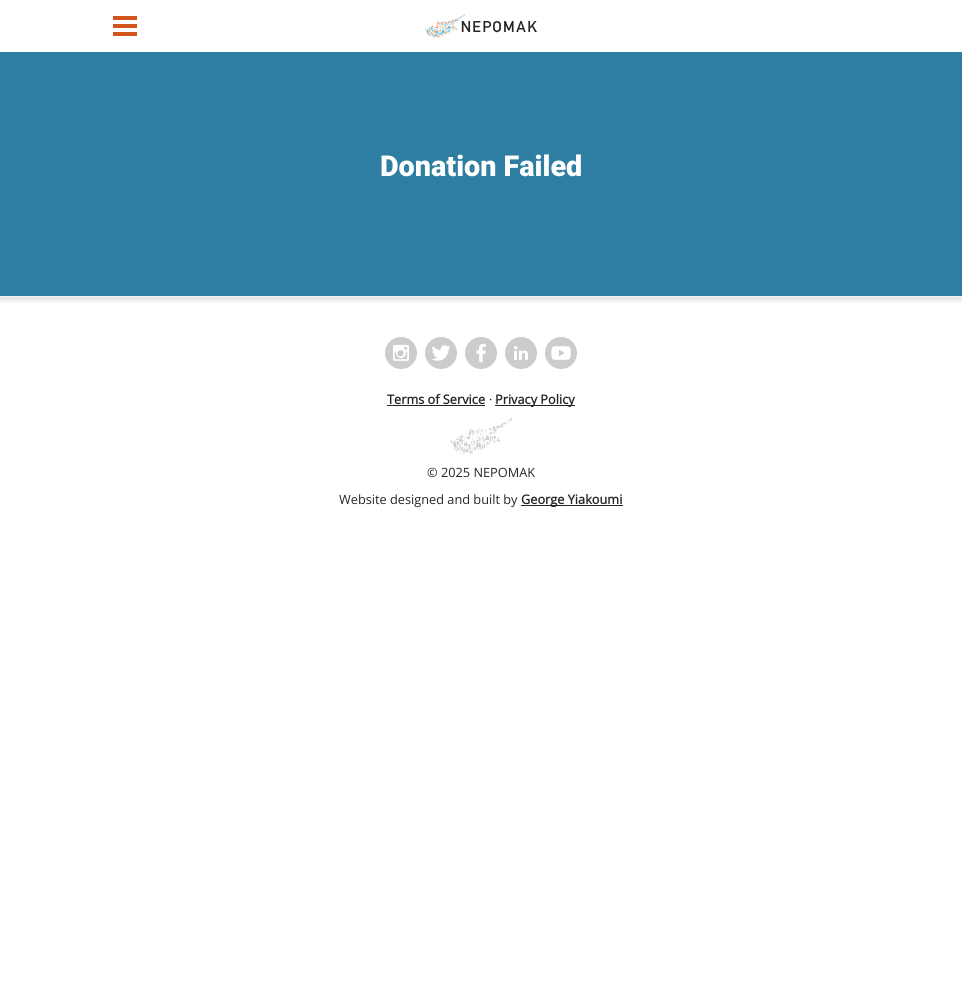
#include <cairo.h>
#include <math.h>
#include <stddef.h>


static void picture(cairo_t *cr, const char *path, double x, double y, double w, double h) {
    cairo_surface_t *image = cairo_image_surface_create_from_png(path);
    cairo_save(cr);
    cairo_set_source_surface(cr, image, x, y);
    cairo_rectangle(cr, x, y, w, h);
    cairo_fill(cr);
    cairo_restore(cr);
    cairo_surface_destroy(image);
}

int main(void) {
    cairo_surface_t *surface = cairo_image_surface_create(CAIRO_FORMAT_RGB24, 962, 981);
    cairo_t *cr = cairo_create(surface);
    cairo_font_options_t *options = cairo_font_options_create();
    cairo_font_options_set_hint_metrics(options, CAIRO_HINT_METRICS_OFF);
    cairo_font_options_set_hint_style(options, CAIRO_HINT_STYLE_NONE);
    cairo_set_font_options(cr, options);
    cairo_set_miter_limit(cr, 4);
    cairo_set_source_rgb(cr, 1, 1, 1);
    cairo_paint(cr);
    cairo_set_source_rgb(cr, 0.827, 0.325, 0.102);
    cairo_rectangle(cr, 113, 16, 24, 4);
    cairo_fill(cr);
    cairo_rectangle(cr, 113, 24, 24, 4);
    cairo_fill(cr);
    cairo_rectangle(cr, 113, 32, 24, 4);
    cairo_fill(cr);
    picture(cr, "img1.png", 425, 14, 112, 25);
    cairo_set_source_rgb(cr, 0.176, 0.494, 0.627);
    cairo_rectangle(cr, 0, 52, 962, 244);
    cairo_fill(cr);
    cairo_select_font_face(cr, "Roboto Black", CAIRO_FONT_SLANT_NORMAL, CAIRO_FONT_WEIGHT_NORMAL);
    cairo_set_font_size(cr, 28.75);
    cairo_set_source_rgb(cr, 1, 1, 1);
    cairo_move_to(cr, 380, 176);
    cairo_show_text(cr, "Donation Failed");
    picture(cr, "img2.png", 0, 297, 962, 6);
    cairo_set_source_rgb(cr, 0.957, 0.957, 0.957);
    cairo_rectangle(cr, 0, 296, 962, 1);
    cairo_fill(cr);
    picture(cr, "img3.png", 385, 337, 32, 32);
    picture(cr, "img4.png", 425, 337, 32, 32);
    picture(cr, "img5.png", 465, 337, 32, 32);
    picture(cr, "img6.png", 505, 337, 32, 32);
    picture(cr, "img7.png", 545, 337, 32, 32);
    cairo_select_font_face(cr, "Open Sans", CAIRO_FONT_SLANT_NORMAL, CAIRO_FONT_WEIGHT_BOLD);
    cairo_set_font_size(cr, 12.75);
    cairo_set_source_rgb(cr, 0.149, 0.149, 0.149);
    cairo_move_to(cr, 387, 404);
    cairo_show_text(cr, "Terms of Service");
    cairo_rectangle(cr, 387, 405, 98, 1);
    cairo_fill(cr);
    cairo_select_font_face(cr, "Open Sans", CAIRO_FONT_SLANT_NORMAL, CAIRO_FONT_WEIGHT_NORMAL);
    cairo_move_to(cr, 489, 404);
    cairo_show_text(cr, "·");
    cairo_rectangle(cr, 495, 405, 80, 1);
    cairo_fill(cr);
    cairo_select_font_face(cr, "Open Sans", CAIRO_FONT_SLANT_NORMAL, CAIRO_FONT_WEIGHT_BOLD);
    cairo_move_to(cr, 495, 404);
    cairo_show_text(cr, "Privacy Policy");
    picture(cr, "img8.png", 450, 417, 63, 38);
    cairo_select_font_face(cr, "Open Sans", CAIRO_FONT_SLANT_NORMAL, CAIRO_FONT_WEIGHT_NORMAL);
    cairo_move_to(cr, 427, 477);
    cairo_show_text(cr, "© 2025 NEPOMAK");
    cairo_move_to(cr, 339, 504);
    cairo_show_text(cr, "Website designed and built by");
    cairo_rectangle(cr, 521, 505, 102, 1);
    cairo_fill(cr);
    cairo_select_font_face(cr, "Open Sans", CAIRO_FONT_SLANT_NORMAL, CAIRO_FONT_WEIGHT_BOLD);
    cairo_move_to(cr, 521, 504);
    cairo_show_text(cr, "George Yiakoumi");
    cairo_surface_write_to_png(surface, "page.png");
    cairo_font_options_destroy(options);
    cairo_destroy(cr);
    cairo_surface_destroy(surface);
    return 0;
}
